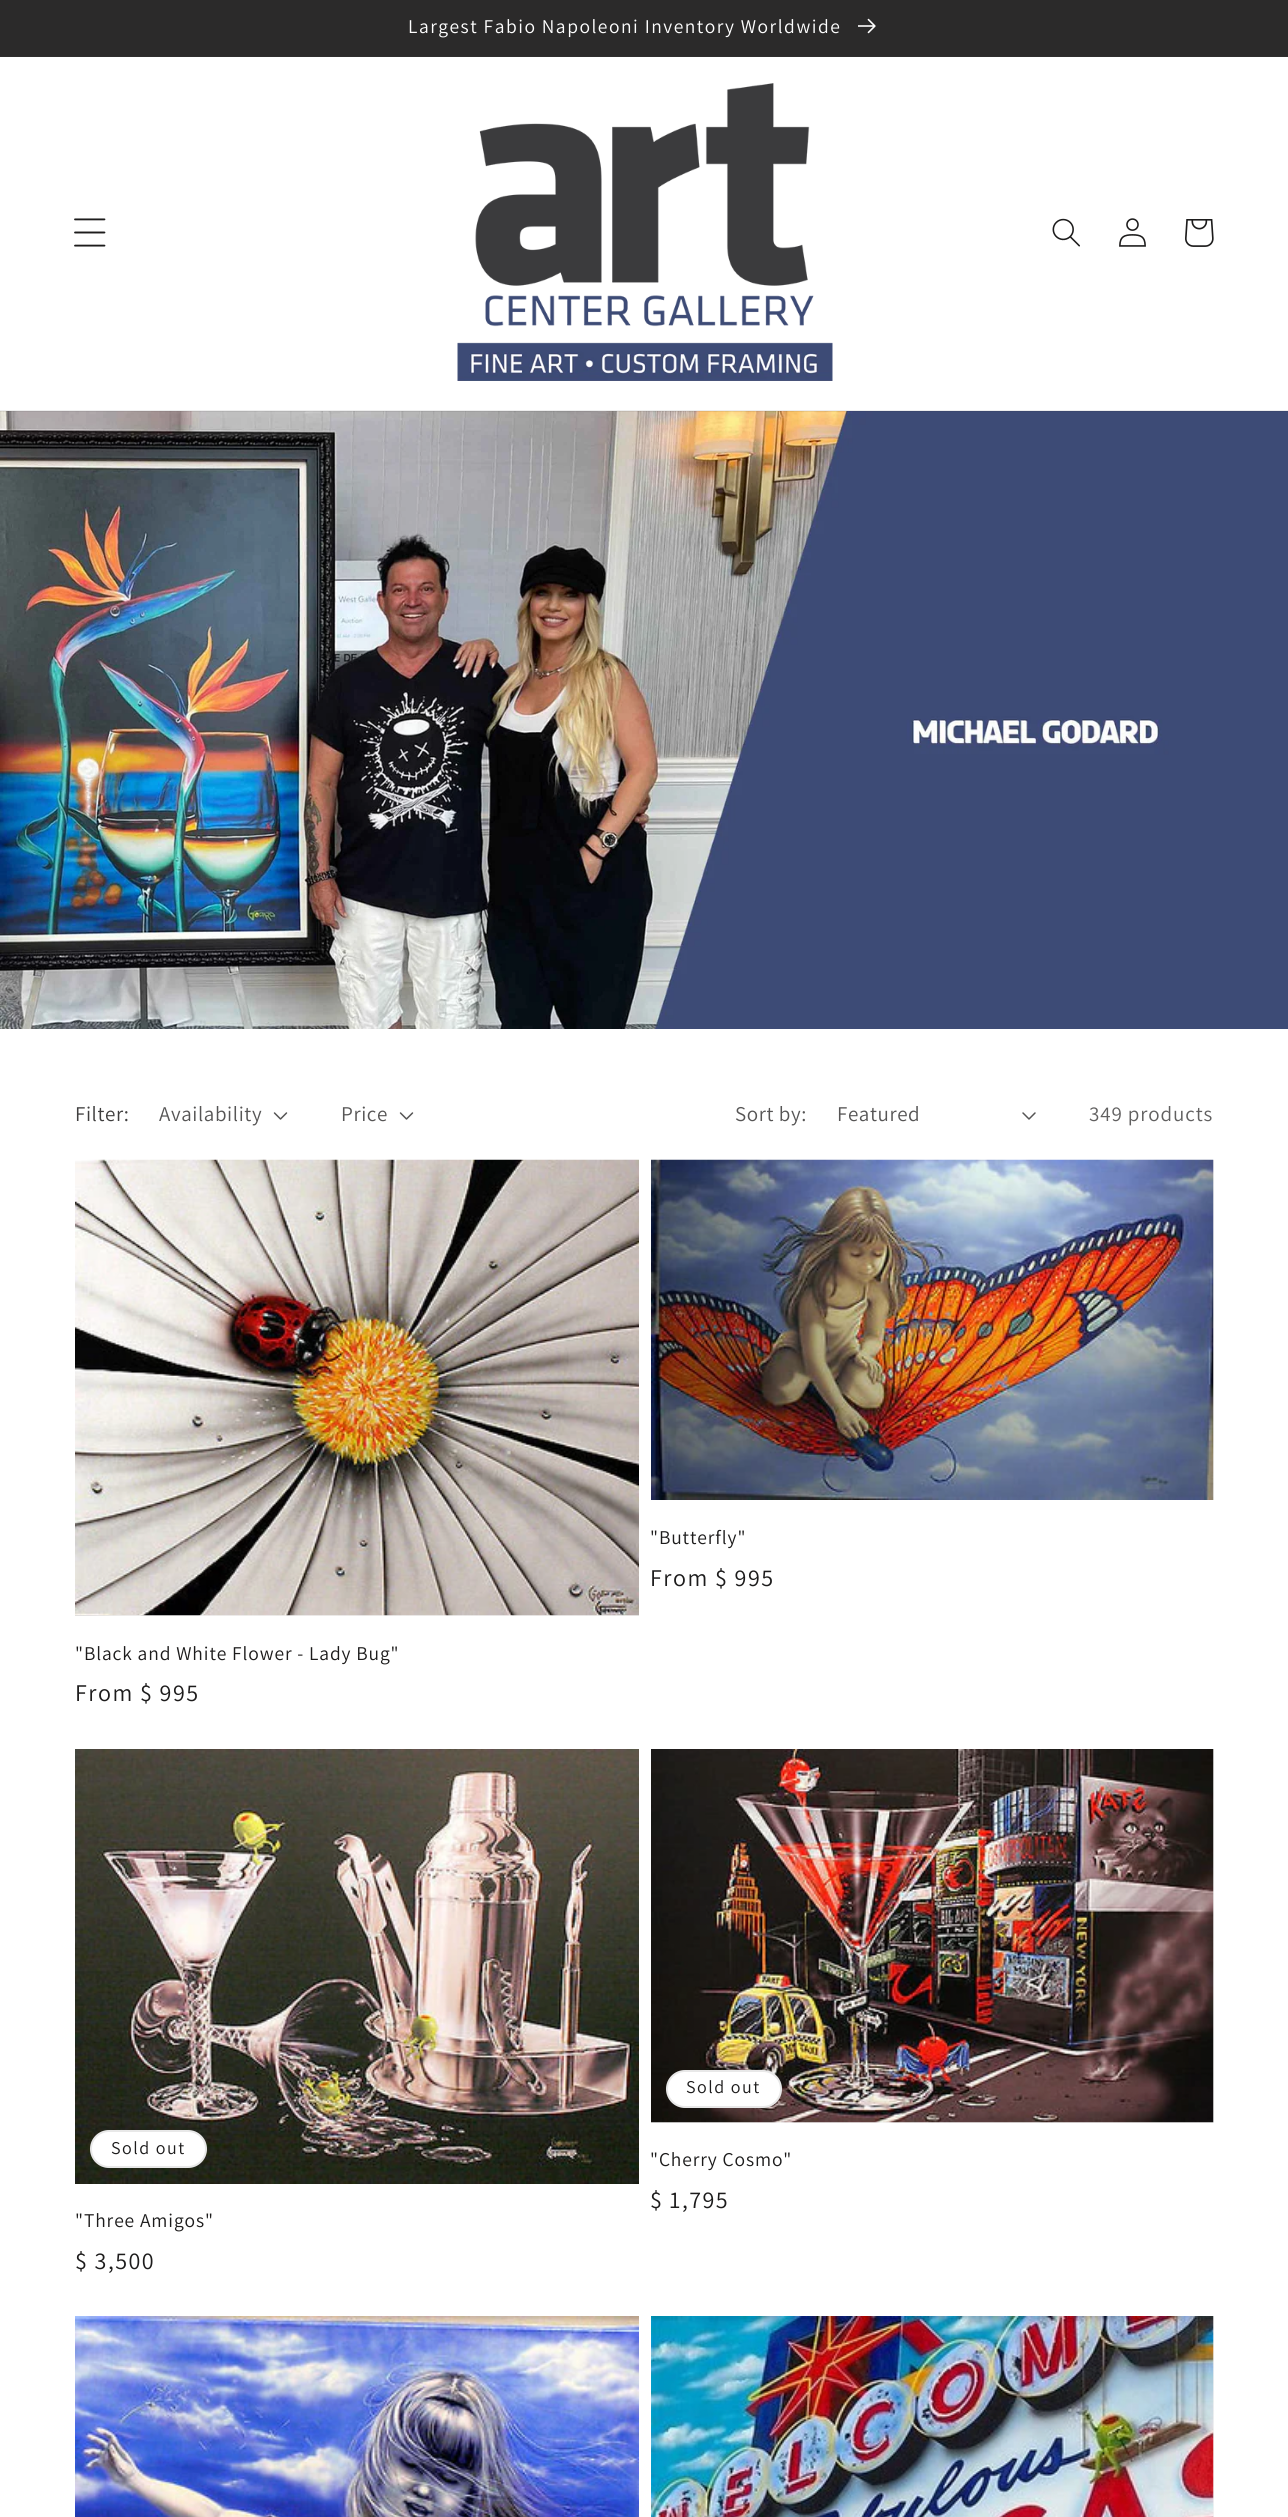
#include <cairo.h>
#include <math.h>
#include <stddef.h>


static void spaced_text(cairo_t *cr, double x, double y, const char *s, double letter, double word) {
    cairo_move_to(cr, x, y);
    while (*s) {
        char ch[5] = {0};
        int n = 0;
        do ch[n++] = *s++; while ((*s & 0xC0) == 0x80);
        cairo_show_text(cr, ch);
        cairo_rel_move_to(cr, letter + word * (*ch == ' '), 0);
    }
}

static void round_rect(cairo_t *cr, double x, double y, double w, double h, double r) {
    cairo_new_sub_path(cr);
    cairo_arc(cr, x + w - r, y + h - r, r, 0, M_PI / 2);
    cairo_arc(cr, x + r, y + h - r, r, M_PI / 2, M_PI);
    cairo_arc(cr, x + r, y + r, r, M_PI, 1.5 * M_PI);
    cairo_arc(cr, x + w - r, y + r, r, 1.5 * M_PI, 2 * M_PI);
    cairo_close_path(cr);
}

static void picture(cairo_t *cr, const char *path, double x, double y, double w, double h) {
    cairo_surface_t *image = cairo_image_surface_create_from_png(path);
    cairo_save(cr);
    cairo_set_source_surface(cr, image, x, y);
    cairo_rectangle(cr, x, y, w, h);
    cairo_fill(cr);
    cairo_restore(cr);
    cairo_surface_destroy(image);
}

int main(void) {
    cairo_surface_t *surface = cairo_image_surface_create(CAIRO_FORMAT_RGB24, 1288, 2517);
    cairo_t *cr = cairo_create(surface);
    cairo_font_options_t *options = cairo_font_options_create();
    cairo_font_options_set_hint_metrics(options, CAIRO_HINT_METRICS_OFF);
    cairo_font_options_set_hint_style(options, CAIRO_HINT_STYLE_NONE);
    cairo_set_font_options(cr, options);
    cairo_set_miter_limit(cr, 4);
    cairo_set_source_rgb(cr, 1, 1, 1);
    cairo_paint(cr);
    cairo_set_source_rgb(cr, 0.184, 0.18, 0.18);
    cairo_rectangle(cr, 0, 56, 1288, 1);
    cairo_fill(cr);
    cairo_set_source_rgb(cr, 0.169, 0.165, 0.165);
    cairo_rectangle(cr, 0, 0, 1288, 56);
    cairo_fill(cr);
    cairo_select_font_face(cr, "Assistant", CAIRO_FONT_SLANT_NORMAL, CAIRO_FONT_WEIGHT_NORMAL);
    cairo_set_font_size(cr, 19.5);
    cairo_set_source_rgb(cr, 1, 1, 1);
    spaced_text(cr, 408, 33, "Largest Fabio Napoleoni Inventory Worldwide", 1.5, 0);
    picture(cr, "img1.png", 858, 18, 18, 16);
    picture(cr, "img7.png", 0, 411, 1288, 618);
    cairo_set_source_rgba(cr, 0.114, 0.11, 0.11, 0.08);
    cairo_rectangle(cr, 0, 410, 1288, 2);
    cairo_fill(cr);
    picture(cr, "img2.png", 74, 218, 32, 29);
    picture(cr, "img3.png", 457, 83, 376, 298);
    picture(cr, "img4.png", 1052, 218, 28, 29);
    picture(cr, "img5.png", 1119, 218, 27, 29);
    picture(cr, "img6.png", 1185, 219, 29, 28);
    cairo_set_font_size(cr, 21);
    cairo_set_source_rgb(cr, 0.247, 0.243, 0.243);
    spaced_text(cr, 75, 1121, "Filter:", 0.6, 0);
    cairo_set_source_rgb(cr, 0.337, 0.333, 0.333);
    spaced_text(cr, 159, 1121, "Availability", 0.6, 0);
    picture(cr, "img8.png", 273, 1112, 15, 8);
    spaced_text(cr, 341, 1121, "Price", 0.6, 0);
    picture(cr, "img8.png", 399, 1112, 15, 8);
    spaced_text(cr, 735, 1121, "Sort by:", 0.6, 0);
    spaced_text(cr, 837, 1121, "Featured", 0.6, 0);
    picture(cr, "img9.png", 1022, 1112, 14, 8);
    cairo_set_source_rgb(cr, 0.38, 0.376, 0.376);
    spaced_text(cr, 1089, 1121, "349 products", 0.9, 0);
    cairo_set_source_rgb(cr, 0.953, 0.953, 0.953);
    cairo_rectangle(cr, 1213, 1160, 1, 340);
    cairo_fill(cr);
    picture(cr, "img10.png", 651, 1159, 563, 341);
    cairo_set_font_size(cr, 19.5);
    cairo_set_source_rgb(cr, 0.114, 0.11, 0.11);
    spaced_text(cr, 650, 1544, "\"Butterfly\"", 0.9, 0);
    cairo_set_font_size(cr, 24);
    spaced_text(cr, 650, 1586, "From $ 995", 1.5, 0);
    cairo_set_source_rgb(cr, 0.953, 0.953, 0.953);
    cairo_rectangle(cr, 75, 1615, 564, 1);
    cairo_fill(cr);
    picture(cr, "img11.png", 75, 1159, 564, 457);
    cairo_set_font_size(cr, 19.5);
    cairo_set_source_rgb(cr, 0.114, 0.11, 0.11);
    spaced_text(cr, 75, 1660, "\"Black and White Flower - Lady Bug\"", 0.9, 0);
    cairo_set_font_size(cr, 24);
    spaced_text(cr, 75, 1701, "From $ 995", 1.5, 0);
    picture(cr, "img12.png", 75, 1749, 564, 435);
    cairo_set_source_rgb(cr, 1, 1, 1);
    round_rect(cr, 90, 2130, 117, 38, 19);
    cairo_fill(cr);
    round_rect(cr, 91, 2131, 115, 36, 18);
    cairo_set_source_rgba(cr, 0.114, 0.11, 0.11, 0.1);
    cairo_stroke(cr);
    cairo_set_font_size(cr, 18);
    cairo_set_source_rgb(cr, 0.114, 0.11, 0.11);
    spaced_text(cr, 111, 2154, "Sold out", 1.5, 0);
    cairo_set_font_size(cr, 19.5);
    spaced_text(cr, 75, 2227, "\"Three Amigos\"", 0.9, 0);
    cairo_set_font_size(cr, 24);
    spaced_text(cr, 75, 2269, "$ 3,500", 1.5, 0);
    cairo_set_source_rgb(cr, 0.953, 0.953, 0.953);
    cairo_rectangle(cr, 651, 1749, 563, 374);
    cairo_fill(cr);
    picture(cr, "img13.png", 651, 1749, 563, 374);
    cairo_set_source_rgb(cr, 1, 1, 1);
    round_rect(cr, 666, 2070, 116, 38, 19);
    cairo_fill(cr);
    round_rect(cr, 667, 2071, 114, 36, 18);
    cairo_set_source_rgba(cr, 0.114, 0.11, 0.11, 0.1);
    cairo_stroke(cr);
    cairo_set_font_size(cr, 18);
    cairo_set_source_rgb(cr, 0.114, 0.11, 0.11);
    spaced_text(cr, 686, 2093, "Sold out", 1.5, 0);
    cairo_set_font_size(cr, 19.5);
    spaced_text(cr, 650, 2166, "\"Cherry Cosmo\"", 0.9, 0);
    cairo_set_font_size(cr, 24);
    spaced_text(cr, 650, 2208, "$ 1,795", 1.5, 0);
    picture(cr, "img14.png", 75, 2316, 564, 201);
    cairo_set_source_rgb(cr, 0.953, 0.953, 0.953);
    cairo_rectangle(cr, 1213, 2316, 1, 201);
    cairo_fill(cr);
    picture(cr, "img15.png", 651, 2316, 563, 201);
    cairo_surface_write_to_png(surface, "page.png");
    cairo_font_options_destroy(options);
    cairo_destroy(cr);
    cairo_surface_destroy(surface);
    return 0;
}
